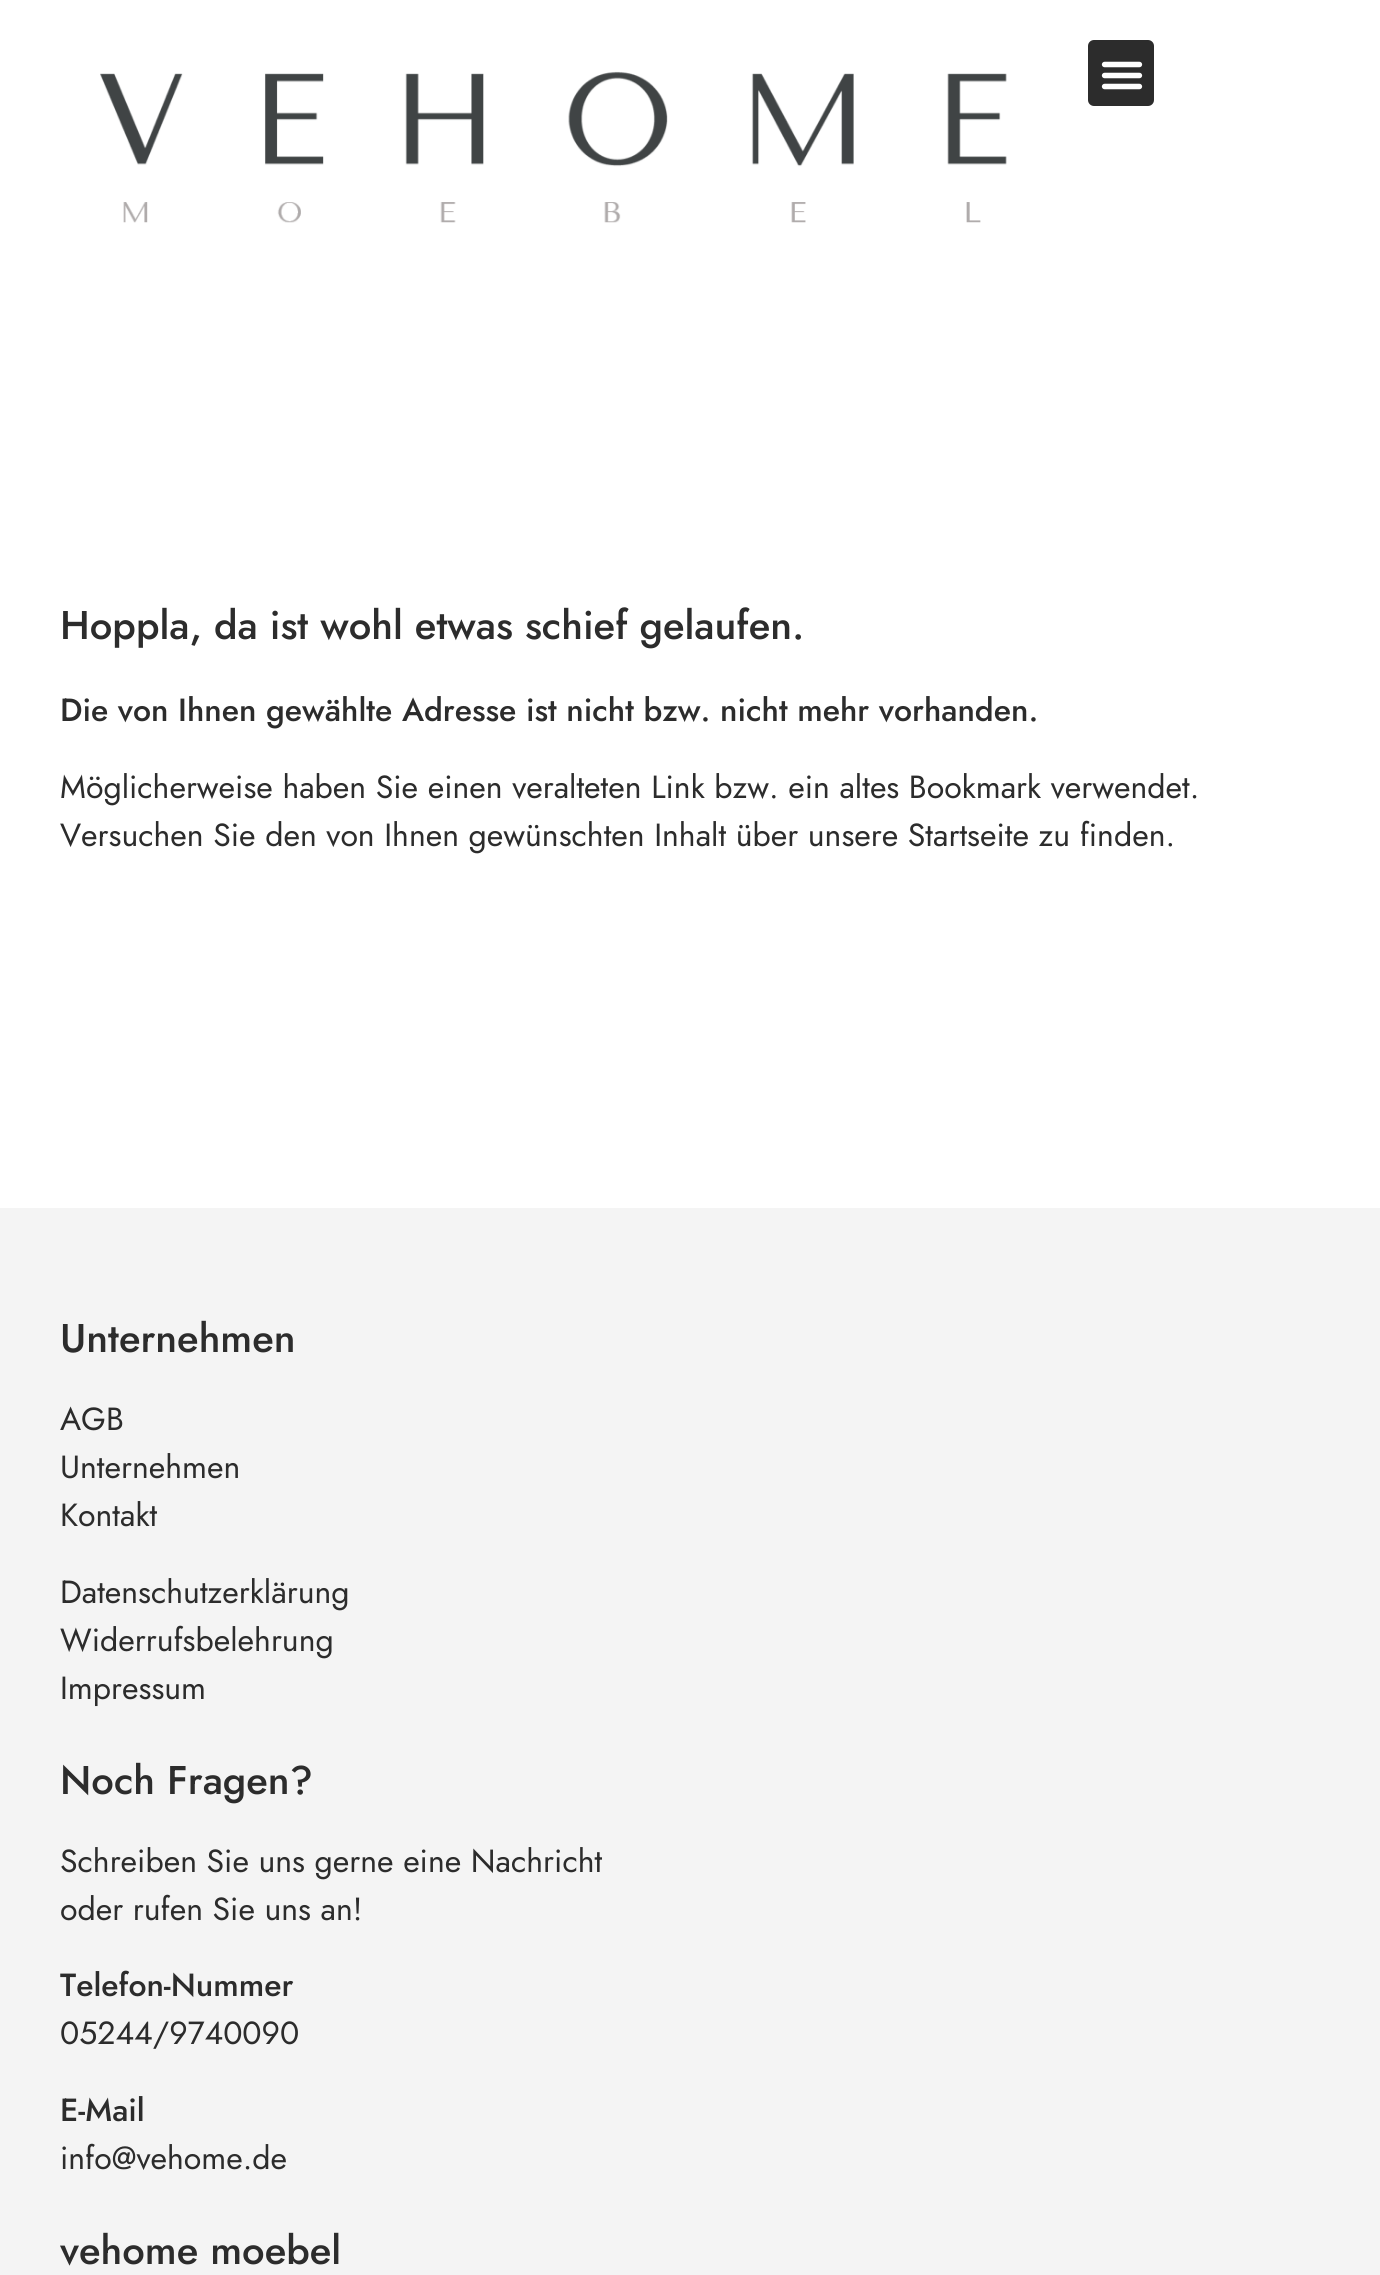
#include <cairo.h>
#include <math.h>
#include <stddef.h>


static void round_rect(cairo_t *cr, double x, double y, double w, double h, double r) {
    cairo_new_sub_path(cr);
    cairo_arc(cr, x + w - r, y + h - r, r, 0, M_PI / 2);
    cairo_arc(cr, x + r, y + h - r, r, M_PI / 2, M_PI);
    cairo_arc(cr, x + r, y + r, r, M_PI, 1.5 * M_PI);
    cairo_arc(cr, x + w - r, y + r, r, 1.5 * M_PI, 2 * M_PI);
    cairo_close_path(cr);
}

static void picture(cairo_t *cr, const char *path, double x, double y, double w, double h) {
    cairo_surface_t *image = cairo_image_surface_create_from_png(path);
    cairo_save(cr);
    cairo_set_source_surface(cr, image, x, y);
    cairo_rectangle(cr, x, y, w, h);
    cairo_fill(cr);
    cairo_restore(cr);
    cairo_surface_destroy(image);
}

int main(void) {
    cairo_surface_t *surface = cairo_image_surface_create(CAIRO_FORMAT_RGB24, 1380, 2275);
    cairo_t *cr = cairo_create(surface);
    cairo_font_options_t *options = cairo_font_options_create();
    cairo_font_options_set_hint_metrics(options, CAIRO_HINT_METRICS_OFF);
    cairo_font_options_set_hint_style(options, CAIRO_HINT_STYLE_NONE);
    cairo_set_font_options(cr, options);
    cairo_set_miter_limit(cr, 4);
    cairo_set_source_rgb(cr, 1, 1, 1);
    cairo_paint(cr);
    picture(cr, "img1.png", 100, 71, 907, 152);
    cairo_set_source_rgb(cr, 0.173, 0.173, 0.173);
    round_rect(cr, 1088, 40, 66, 66, 6);
    cairo_fill(cr);
    picture(cr, "img2.png", 1101, 61, 42, 29);
    cairo_select_font_face(cr, "Jost Medium", CAIRO_FONT_SLANT_NORMAL, CAIRO_FONT_WEIGHT_NORMAL);
    cairo_set_font_size(cr, 40);
    cairo_move_to(cr, 60, 639);
    cairo_show_text(cr, "Hoppla, da ist wohl etwas schief gelaufen.");
    cairo_set_font_size(cr, 32);
    cairo_move_to(cr, 60, 721);
    cairo_show_text(cr, "Die von Ihnen gewählte Adresse ist nicht bzw. nicht mehr vorhanden.");
    cairo_select_font_face(cr, "Jost", CAIRO_FONT_SLANT_NORMAL, CAIRO_FONT_WEIGHT_NORMAL);
    cairo_move_to(cr, 60, 798);
    cairo_show_text(cr, "Möglicherweise haben Sie einen veralteten Link bzw. ein altes Bookmark verwendet.");
    cairo_move_to(cr, 60, 846);
    cairo_show_text(cr, "Versuchen Sie den von Ihnen gewünschten Inhalt über unsere Startseite zu finden.");
    cairo_set_source_rgb(cr, 0.957, 0.957, 0.957);
    cairo_rectangle(cr, 0, 1208, 1380, 1067);
    cairo_fill(cr);
    cairo_select_font_face(cr, "Jost Medium", CAIRO_FONT_SLANT_NORMAL, CAIRO_FONT_WEIGHT_NORMAL);
    cairo_set_font_size(cr, 40);
    cairo_set_source_rgb(cr, 0.173, 0.173, 0.173);
    cairo_move_to(cr, 60, 1352);
    cairo_show_text(cr, "Unternehmen");
    cairo_select_font_face(cr, "Jost", CAIRO_FONT_SLANT_NORMAL, CAIRO_FONT_WEIGHT_NORMAL);
    cairo_set_font_size(cr, 32);
    cairo_move_to(cr, 60, 1430);
    cairo_show_text(cr, "AGB");
    cairo_move_to(cr, 60, 1478);
    cairo_show_text(cr, "Unternehmen");
    cairo_move_to(cr, 60, 1526);
    cairo_show_text(cr, "Kontakt");
    cairo_move_to(cr, 60, 1603);
    cairo_show_text(cr, "Datenschutzerklärung");
    cairo_move_to(cr, 60, 1651);
    cairo_show_text(cr, "Widerrufsbelehrung");
    cairo_move_to(cr, 60, 1699);
    cairo_show_text(cr, "Impressum");
    cairo_select_font_face(cr, "Jost Medium", CAIRO_FONT_SLANT_NORMAL, CAIRO_FONT_WEIGHT_NORMAL);
    cairo_set_font_size(cr, 40);
    cairo_move_to(cr, 60, 1794);
    cairo_show_text(cr, "Noch Fragen?");
    cairo_select_font_face(cr, "Jost", CAIRO_FONT_SLANT_NORMAL, CAIRO_FONT_WEIGHT_NORMAL);
    cairo_set_font_size(cr, 32);
    cairo_move_to(cr, 60, 1872);
    cairo_show_text(cr, "Schreiben Sie uns gerne eine Nachricht");
    cairo_move_to(cr, 60, 1920);
    cairo_show_text(cr, "oder rufen Sie uns an!");
    cairo_select_font_face(cr, "Jost Medium", CAIRO_FONT_SLANT_NORMAL, CAIRO_FONT_WEIGHT_NORMAL);
    cairo_move_to(cr, 60, 1996);
    cairo_show_text(cr, "Telefon-Nummer");
    cairo_select_font_face(cr, "Jost", CAIRO_FONT_SLANT_NORMAL, CAIRO_FONT_WEIGHT_NORMAL);
    cairo_move_to(cr, 60, 2044);
    cairo_show_text(cr, "05244/9740090");
    cairo_select_font_face(cr, "Jost Medium", CAIRO_FONT_SLANT_NORMAL, CAIRO_FONT_WEIGHT_NORMAL);
    cairo_move_to(cr, 60, 2121);
    cairo_show_text(cr, "E-Mail");
    cairo_select_font_face(cr, "Jost", CAIRO_FONT_SLANT_NORMAL, CAIRO_FONT_WEIGHT_NORMAL);
    cairo_move_to(cr, 60, 2169);
    cairo_show_text(cr, "info@vehome.de");
    cairo_select_font_face(cr, "Jost Medium", CAIRO_FONT_SLANT_NORMAL, CAIRO_FONT_WEIGHT_NORMAL);
    cairo_set_font_size(cr, 40);
    cairo_move_to(cr, 60, 2264);
    cairo_show_text(cr, "vehome moebel");
    cairo_surface_write_to_png(surface, "page.png");
    cairo_font_options_destroy(options);
    cairo_destroy(cr);
    cairo_surface_destroy(surface);
    return 0;
}
